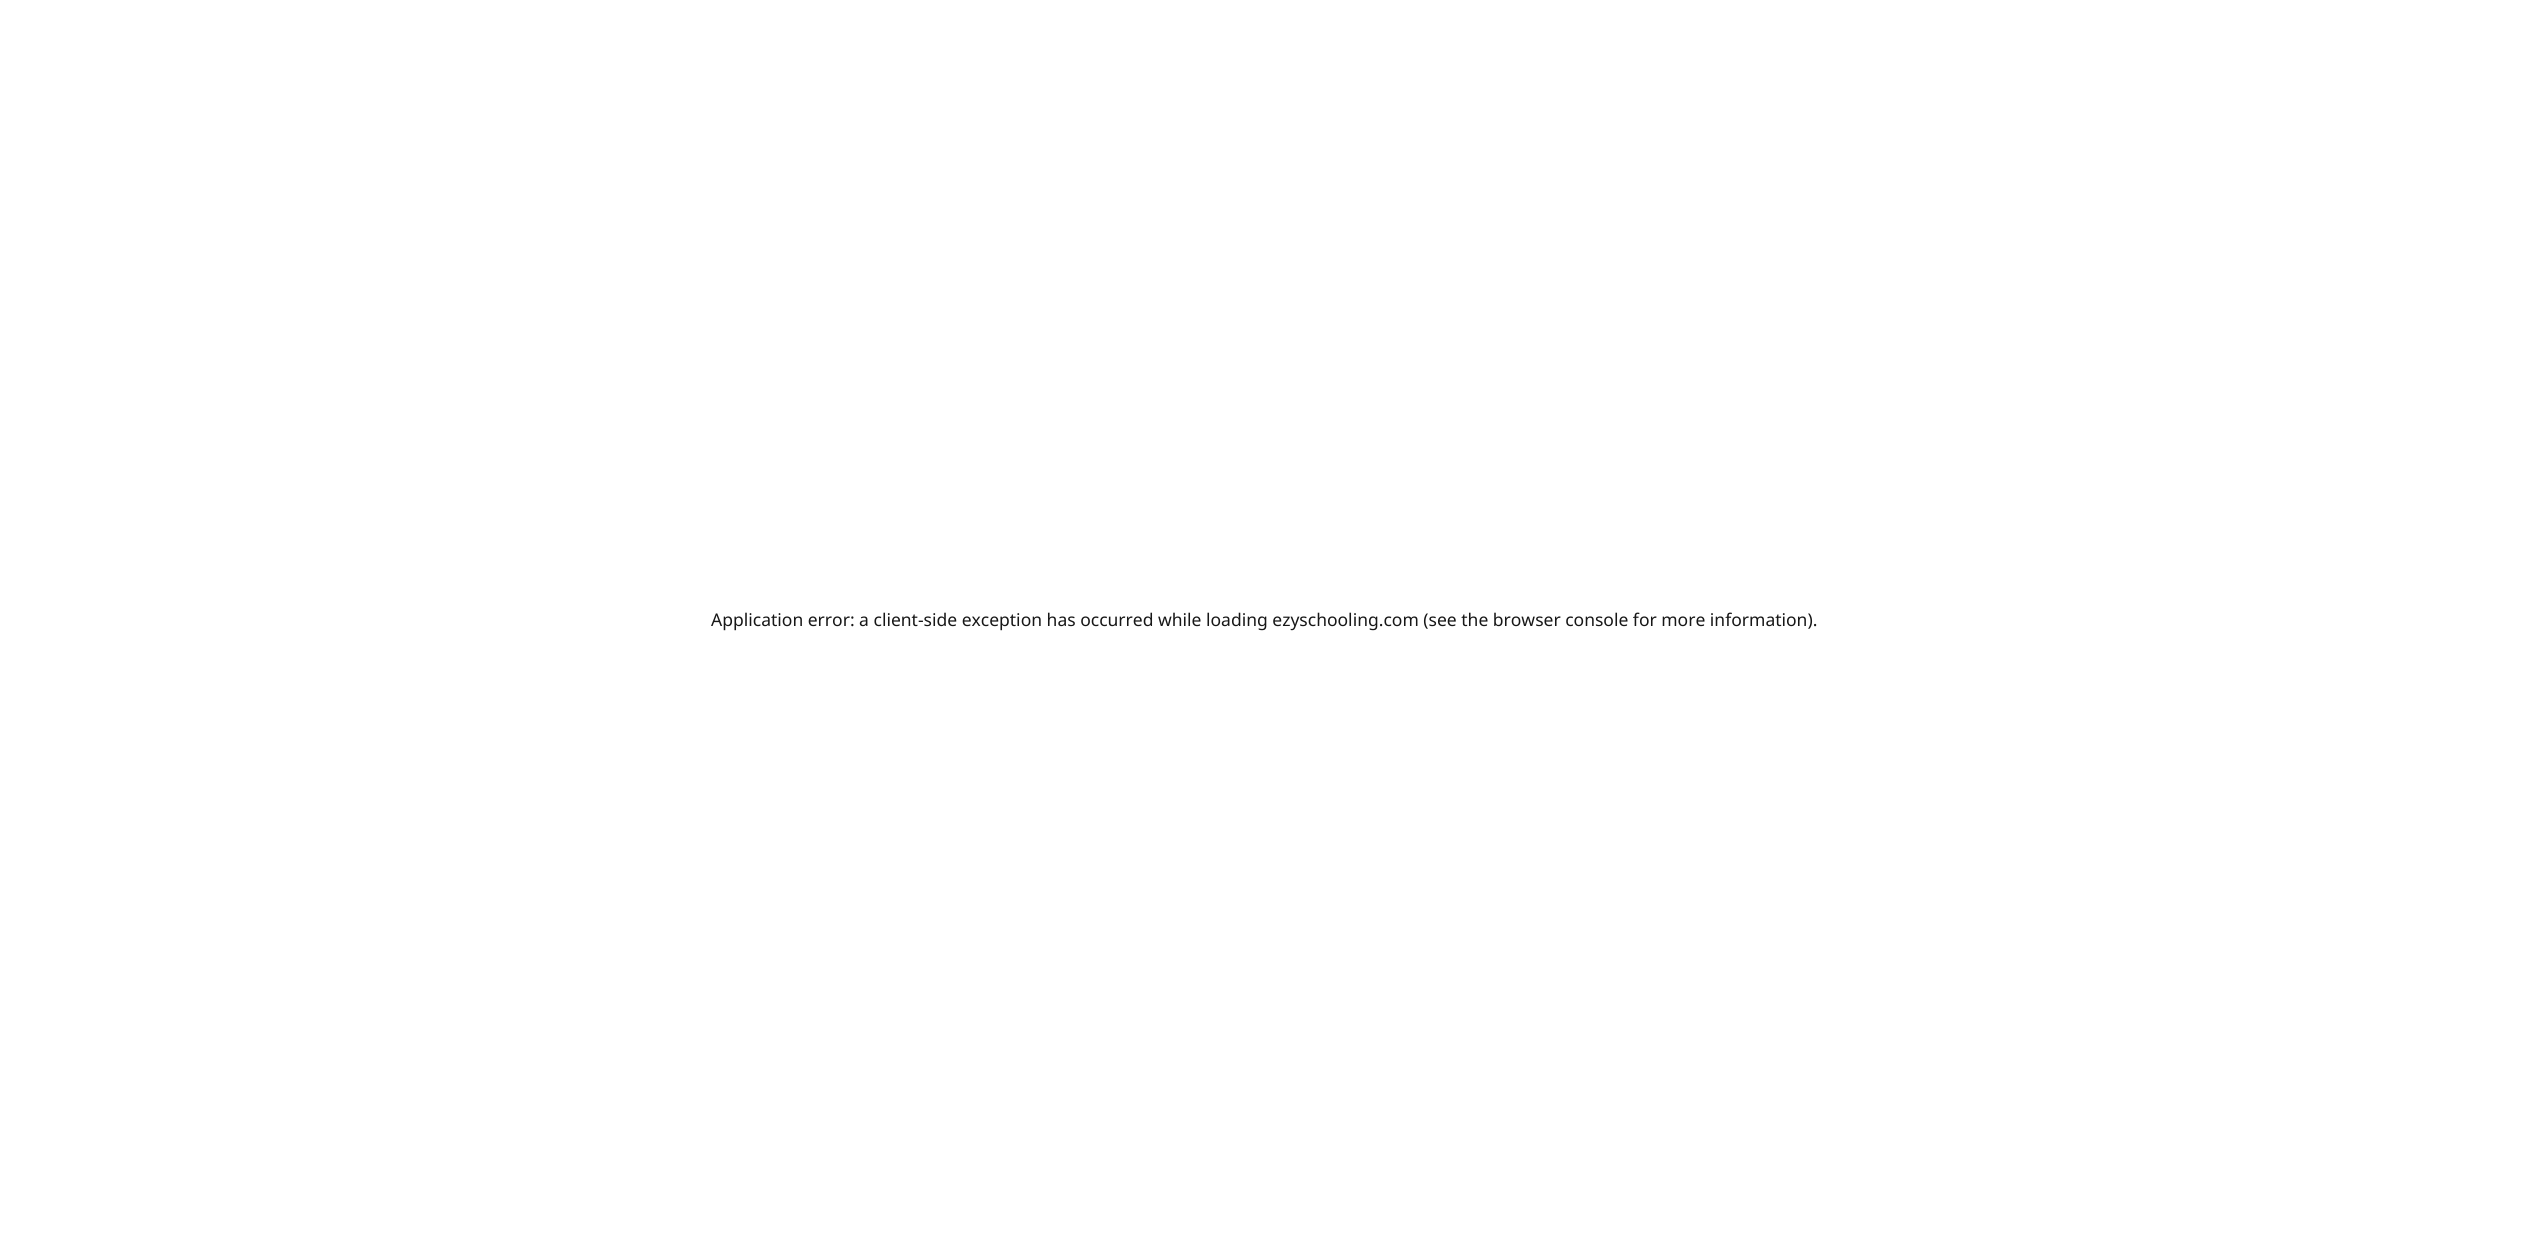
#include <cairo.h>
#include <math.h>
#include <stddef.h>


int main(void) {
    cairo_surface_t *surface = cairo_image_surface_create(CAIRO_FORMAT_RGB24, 2528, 1238);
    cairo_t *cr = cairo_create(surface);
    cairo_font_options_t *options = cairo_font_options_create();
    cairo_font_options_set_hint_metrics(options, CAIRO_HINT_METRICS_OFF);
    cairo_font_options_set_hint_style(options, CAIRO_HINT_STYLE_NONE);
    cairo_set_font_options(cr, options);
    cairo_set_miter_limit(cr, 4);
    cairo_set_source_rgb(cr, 1, 1, 1);
    cairo_paint(cr);
    cairo_select_font_face(cr, "Noto Sans", CAIRO_FONT_SLANT_NORMAL, CAIRO_FONT_WEIGHT_NORMAL);
    cairo_set_font_size(cr, 17.5);
    cairo_set_source_rgb(cr, 0.09, 0.09, 0.09);
    cairo_move_to(cr, 711, 626);
    cairo_show_text(cr, "Application error: a client-side exception has occurred while loading ezyschooling.com (see the browser console for more information).");
    cairo_surface_write_to_png(surface, "page.png");
    cairo_font_options_destroy(options);
    cairo_destroy(cr);
    cairo_surface_destroy(surface);
    return 0;
}
